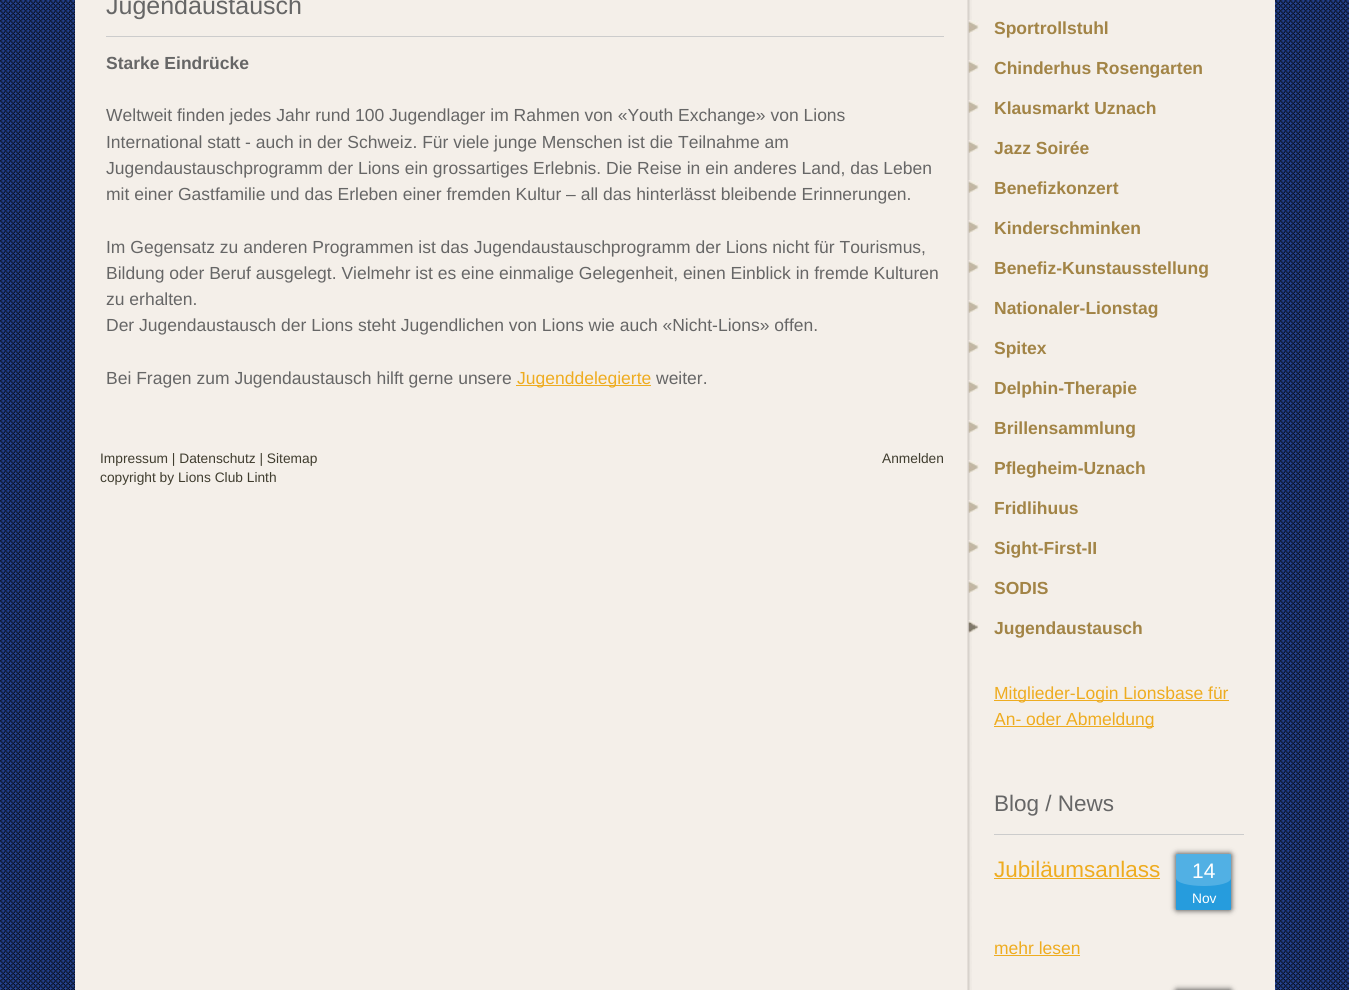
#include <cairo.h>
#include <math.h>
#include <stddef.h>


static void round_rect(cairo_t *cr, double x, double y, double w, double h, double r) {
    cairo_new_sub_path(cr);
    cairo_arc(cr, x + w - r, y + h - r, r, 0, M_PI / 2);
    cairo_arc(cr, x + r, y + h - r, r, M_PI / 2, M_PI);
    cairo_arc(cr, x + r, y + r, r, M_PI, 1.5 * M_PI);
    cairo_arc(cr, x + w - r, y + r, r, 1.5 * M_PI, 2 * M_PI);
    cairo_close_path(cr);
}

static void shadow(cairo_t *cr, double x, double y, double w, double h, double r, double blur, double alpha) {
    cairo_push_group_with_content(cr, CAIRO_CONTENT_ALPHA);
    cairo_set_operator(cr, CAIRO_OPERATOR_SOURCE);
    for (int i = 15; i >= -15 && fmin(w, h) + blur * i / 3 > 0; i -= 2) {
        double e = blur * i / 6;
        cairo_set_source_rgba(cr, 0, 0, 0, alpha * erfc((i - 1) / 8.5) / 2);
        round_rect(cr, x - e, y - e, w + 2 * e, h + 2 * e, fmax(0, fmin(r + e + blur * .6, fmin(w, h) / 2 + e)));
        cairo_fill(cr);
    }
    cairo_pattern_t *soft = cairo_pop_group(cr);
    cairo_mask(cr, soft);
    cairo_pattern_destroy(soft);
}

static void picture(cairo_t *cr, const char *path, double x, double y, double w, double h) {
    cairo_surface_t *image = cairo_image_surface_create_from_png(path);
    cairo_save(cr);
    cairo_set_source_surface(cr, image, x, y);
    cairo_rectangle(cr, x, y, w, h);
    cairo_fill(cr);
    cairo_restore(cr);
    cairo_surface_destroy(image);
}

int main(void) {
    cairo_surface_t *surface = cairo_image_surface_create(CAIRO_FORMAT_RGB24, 1349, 990);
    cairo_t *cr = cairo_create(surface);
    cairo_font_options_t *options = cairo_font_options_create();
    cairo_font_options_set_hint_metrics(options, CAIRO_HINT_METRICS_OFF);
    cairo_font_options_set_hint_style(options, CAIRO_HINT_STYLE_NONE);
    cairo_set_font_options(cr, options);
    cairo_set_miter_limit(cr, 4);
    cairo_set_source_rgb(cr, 0.149, 0.271, 0.588);
    cairo_paint(cr);
    picture(cr, "img1.png", 0, 0, 1349, 990);
    cairo_set_source_rgb(cr, 0.957, 0.937, 0.914);
    cairo_rectangle(cr, 75, 0, 1200, 990);
    cairo_fill(cr);
    picture(cr, "img2.png", 967, 0, 5, 990);
    cairo_select_font_face(cr, "Liberation Sans", CAIRO_FONT_SLANT_NORMAL, CAIRO_FONT_WEIGHT_NORMAL);
    cairo_set_font_size(cr, 25);
    cairo_set_source_rgb(cr, 0.4, 0.4, 0.4);
    cairo_move_to(cr, 106, 14);
    cairo_show_text(cr, "Jugendaustausch");
    cairo_set_source_rgb(cr, 0.8, 0.8, 0.8);
    cairo_rectangle(cr, 106, 36, 838, 1);
    cairo_fill(cr);
    cairo_select_font_face(cr, "Liberation Sans", CAIRO_FONT_SLANT_NORMAL, CAIRO_FONT_WEIGHT_BOLD);
    cairo_set_font_size(cr, 17.5);
    cairo_set_source_rgb(cr, 0.4, 0.4, 0.4);
    cairo_move_to(cr, 106, 69);
    cairo_show_text(cr, "Starke Eindrücke");
    cairo_select_font_face(cr, "Liberation Sans", CAIRO_FONT_SLANT_NORMAL, CAIRO_FONT_WEIGHT_NORMAL);
    cairo_move_to(cr, 106, 121);
    cairo_show_text(cr, "Weltweit finden jedes Jahr rund 100 Jugendlager im Rahmen von «Youth Exchange» von Lions");
    cairo_move_to(cr, 106, 148);
    cairo_show_text(cr, "International statt - auch in der Schweiz. Für viele junge Menschen ist die Teilnahme am");
    cairo_move_to(cr, 106, 174);
    cairo_show_text(cr, "Jugendaustauschprogramm der Lions ein grossartiges Erlebnis. Die Reise in ein anderes Land, das Leben");
    cairo_move_to(cr, 106, 200);
    cairo_show_text(cr, "mit einer Gastfamilie und das Erleben einer fremden Kultur – all das hinterlässt bleibende Erinnerungen.");
    cairo_move_to(cr, 106, 253);
    cairo_show_text(cr, "Im Gegensatz zu anderen Programmen ist das Jugendaustauschprogramm der Lions nicht für Tourismus,");
    cairo_move_to(cr, 106, 279);
    cairo_show_text(cr, "Bildung oder Beruf ausgelegt. Vielmehr ist es eine einmalige Gelegenheit, einen Einblick in fremde Kulturen");
    cairo_move_to(cr, 106, 305);
    cairo_show_text(cr, "zu erhalten.");
    cairo_move_to(cr, 106, 331);
    cairo_show_text(cr, "Der Jugendaustausch der Lions steht Jugendlichen von Lions wie auch «Nicht-Lions» offen.");
    cairo_move_to(cr, 106, 384);
    cairo_show_text(cr, "Bei Fragen zum Jugendaustausch hilft gerne unsere");
    cairo_set_source_rgb(cr, 0.933, 0.675, 0.125);
    cairo_rectangle(cr, 516, 385, 135, 1);
    cairo_fill(cr);
    cairo_move_to(cr, 517, 384);
    cairo_show_text(cr, "Jugenddelegierte");
    cairo_set_source_rgb(cr, 0.4, 0.4, 0.4);
    cairo_move_to(cr, 656, 384);
    cairo_show_text(cr, "weiter.");
    picture(cr, "img3.png", 968, 20, 11, 13);
    cairo_select_font_face(cr, "Liberation Sans", CAIRO_FONT_SLANT_NORMAL, CAIRO_FONT_WEIGHT_BOLD);
    cairo_set_source_rgb(cr, 0.635, 0.518, 0.275);
    cairo_move_to(cr, 994, 34);
    cairo_show_text(cr, "Sportrollstuhl");
    picture(cr, "img4.png", 968, 60, 11, 13);
    cairo_move_to(cr, 994, 74);
    cairo_show_text(cr, "Chinderhus Rosengarten");
    picture(cr, "img5.png", 968, 100, 11, 13);
    cairo_move_to(cr, 994, 114);
    cairo_show_text(cr, "Klausmarkt Uznach");
    picture(cr, "img4.png", 968, 140, 11, 13);
    cairo_move_to(cr, 994, 154);
    cairo_show_text(cr, "Jazz Soirée");
    picture(cr, "img5.png", 968, 180, 11, 13);
    cairo_move_to(cr, 994, 194);
    cairo_show_text(cr, "Benefizkonzert");
    picture(cr, "img6.png", 968, 220, 11, 13);
    cairo_move_to(cr, 994, 234);
    cairo_show_text(cr, "Kinderschminken");
    picture(cr, "img4.png", 968, 260, 11, 13);
    cairo_move_to(cr, 994, 274);
    cairo_show_text(cr, "Benefiz-Kunstausstellung");
    picture(cr, "img4.png", 968, 300, 11, 13);
    cairo_move_to(cr, 994, 314);
    cairo_show_text(cr, "Nationaler-Lionstag");
    picture(cr, "img4.png", 968, 340, 11, 13);
    cairo_move_to(cr, 994, 354);
    cairo_show_text(cr, "Spitex");
    picture(cr, "img5.png", 968, 380, 11, 13);
    cairo_move_to(cr, 994, 394);
    cairo_show_text(cr, "Delphin-Therapie");
    picture(cr, "img4.png", 968, 420, 11, 13);
    cairo_move_to(cr, 994, 434);
    cairo_show_text(cr, "Brillensammlung");
    picture(cr, "img7.png", 968, 460, 11, 13);
    cairo_move_to(cr, 994, 474);
    cairo_show_text(cr, "Pflegheim-Uznach");
    picture(cr, "img4.png", 968, 500, 11, 13);
    cairo_move_to(cr, 994, 514);
    cairo_show_text(cr, "Fridlihuus");
    picture(cr, "img4.png", 968, 540, 11, 13);
    cairo_move_to(cr, 994, 554);
    cairo_show_text(cr, "Sight-First-II");
    picture(cr, "img4.png", 968, 580, 11, 13);
    cairo_move_to(cr, 994, 594);
    cairo_show_text(cr, "SODIS");
    picture(cr, "img8.png", 968, 620, 11, 13);
    cairo_move_to(cr, 994, 634);
    cairo_show_text(cr, "Jugendaustausch");
    cairo_set_source_rgb(cr, 0.933, 0.675, 0.125);
    cairo_rectangle(cr, 994, 700, 235, 1);
    cairo_fill(cr);
    cairo_select_font_face(cr, "Liberation Sans", CAIRO_FONT_SLANT_NORMAL, CAIRO_FONT_WEIGHT_NORMAL);
    cairo_move_to(cr, 994, 699);
    cairo_show_text(cr, "Mitglieder-Login Lionsbase für");
    cairo_rectangle(cr, 994, 726, 160, 1);
    cairo_fill(cr);
    cairo_move_to(cr, 994, 725);
    cairo_show_text(cr, "An- oder Abmeldung");
    cairo_set_font_size(cr, 22.5);
    cairo_set_source_rgb(cr, 0.4, 0.4, 0.4);
    cairo_move_to(cr, 994, 811);
    cairo_show_text(cr, "Blog / News");
    cairo_set_source_rgb(cr, 0.8, 0.8, 0.8);
    cairo_rectangle(cr, 994, 834, 250, 1);
    cairo_fill(cr);
    cairo_set_source_rgb(cr, 0.933, 0.675, 0.125);
    cairo_move_to(cr, 994, 877);
    cairo_show_text(cr, "Jubiläumsanlass");
    cairo_rectangle(cr, 994, 878, 166, 1);
    cairo_fill(cr);
    cairo_set_source_rgb(cr, 0.196, 0.196, 0.196);
    shadow(cr, 1176, 854, 55, 56, 1, 3, 1);
    cairo_set_source_rgb(cr, 0.149, 0.612, 0.867);
    round_rect(cr, 1176, 854, 55, 56, 1);
    cairo_fill(cr);
    cairo_set_font_size(cr, 21);
    cairo_set_source_rgb(cr, 1, 1, 1);
    cairo_move_to(cr, 1192, 878);
    cairo_show_text(cr, "14");
    cairo_set_source_rgba(cr, 1, 1, 1, 0.2);
    cairo_new_path(cr);
    cairo_move_to(cr, 1177, 854);
    cairo_curve_to(cr, 1176, 854, 1176, 854, 1176, 855);
    cairo_line_to(cr, 1176, 878);
    cairo_curve_to(cr, 1176, 883, 1189, 886, 1204, 886);
    cairo_curve_to(cr, 1219, 886, 1231, 883, 1231, 878);
    cairo_line_to(cr, 1231, 855);
    cairo_curve_to(cr, 1231, 854, 1231, 854, 1230, 854);
    cairo_close_path(cr);
    cairo_fill(cr);
    cairo_set_font_size(cr, 13.75);
    cairo_set_source_rgb(cr, 1, 1, 1);
    cairo_move_to(cr, 1192, 903);
    cairo_show_text(cr, "Nov");
    cairo_set_font_size(cr, 17.5);
    cairo_set_source_rgb(cr, 0.933, 0.675, 0.125);
    cairo_move_to(cr, 994, 954);
    cairo_show_text(cr, "mehr lesen");
    cairo_rectangle(cr, 994, 955, 86, 1);
    cairo_fill(cr);
    cairo_set_source_rgb(cr, 0.196, 0.196, 0.196);
    shadow(cr, 1176, 990, 55, 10, 1, 3, 1);
    cairo_set_font_size(cr, 13.75);
    cairo_set_source_rgb(cr, 0.251, 0.239, 0.184);
    cairo_move_to(cr, 100, 463);
    cairo_show_text(cr, "Impressum | Datenschutz | Sitemap");
    cairo_move_to(cr, 100, 482);
    cairo_show_text(cr, "copyright by Lions Club Linth");
    cairo_move_to(cr, 882, 463);
    cairo_show_text(cr, "Anmelden");
    cairo_surface_write_to_png(surface, "page.png");
    cairo_font_options_destroy(options);
    cairo_destroy(cr);
    cairo_surface_destroy(surface);
    return 0;
}
